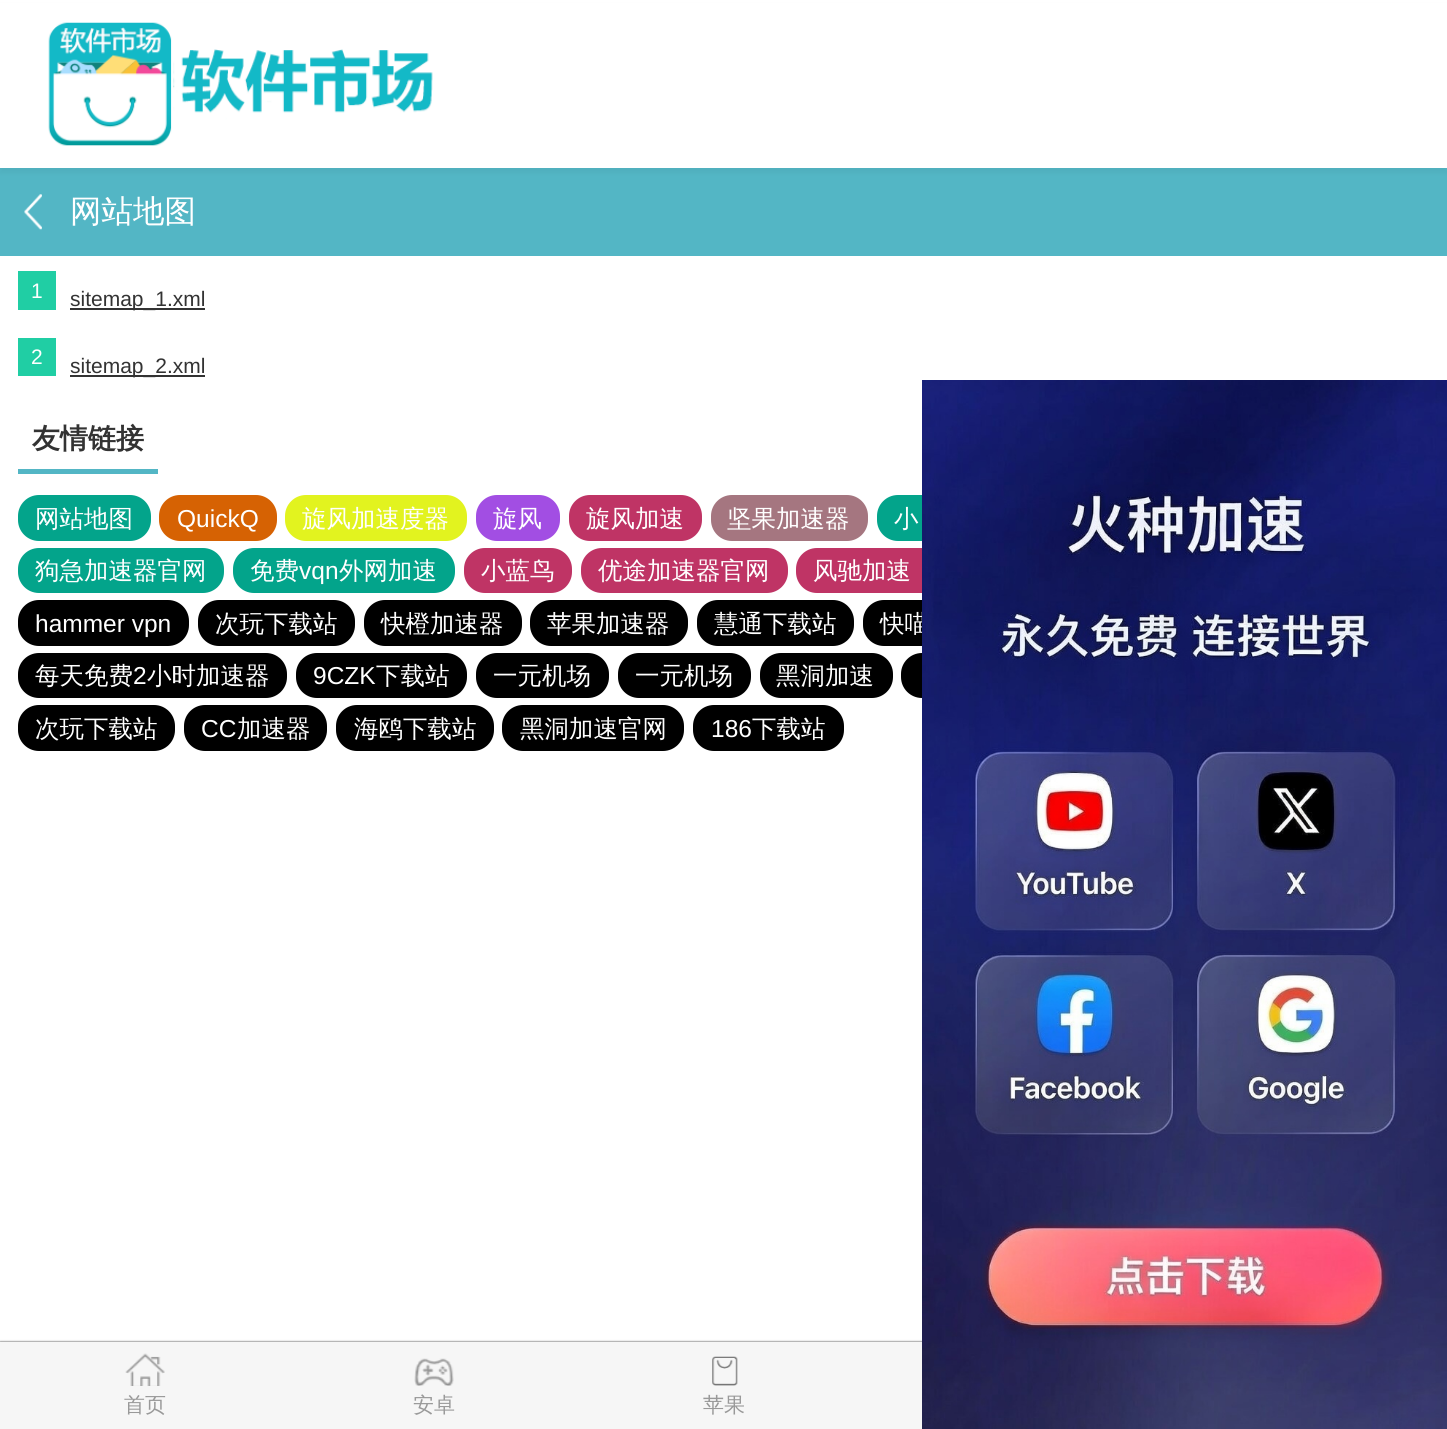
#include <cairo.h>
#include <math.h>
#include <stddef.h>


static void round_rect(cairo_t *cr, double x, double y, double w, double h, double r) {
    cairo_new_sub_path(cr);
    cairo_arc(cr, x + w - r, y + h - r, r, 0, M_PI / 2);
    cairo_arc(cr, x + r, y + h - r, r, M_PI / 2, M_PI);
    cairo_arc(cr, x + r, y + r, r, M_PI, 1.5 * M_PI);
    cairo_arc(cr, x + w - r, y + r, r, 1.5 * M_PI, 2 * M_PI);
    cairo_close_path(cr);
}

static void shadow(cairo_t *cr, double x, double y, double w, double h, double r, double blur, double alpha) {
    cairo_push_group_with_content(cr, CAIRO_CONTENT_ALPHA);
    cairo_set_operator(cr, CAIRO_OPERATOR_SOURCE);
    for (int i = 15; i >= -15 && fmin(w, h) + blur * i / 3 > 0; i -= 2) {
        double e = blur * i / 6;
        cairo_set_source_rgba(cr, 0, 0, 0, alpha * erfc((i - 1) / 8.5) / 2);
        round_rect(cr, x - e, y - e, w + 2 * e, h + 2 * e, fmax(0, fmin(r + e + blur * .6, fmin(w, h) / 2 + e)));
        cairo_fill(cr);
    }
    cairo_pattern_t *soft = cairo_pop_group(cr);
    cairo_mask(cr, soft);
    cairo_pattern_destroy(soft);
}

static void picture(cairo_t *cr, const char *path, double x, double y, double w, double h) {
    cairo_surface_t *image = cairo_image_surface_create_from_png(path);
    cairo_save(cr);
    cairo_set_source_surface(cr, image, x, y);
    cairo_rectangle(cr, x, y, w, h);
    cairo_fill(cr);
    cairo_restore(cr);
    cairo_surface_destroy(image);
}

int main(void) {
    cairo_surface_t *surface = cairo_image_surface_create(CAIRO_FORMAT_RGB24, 1447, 1429);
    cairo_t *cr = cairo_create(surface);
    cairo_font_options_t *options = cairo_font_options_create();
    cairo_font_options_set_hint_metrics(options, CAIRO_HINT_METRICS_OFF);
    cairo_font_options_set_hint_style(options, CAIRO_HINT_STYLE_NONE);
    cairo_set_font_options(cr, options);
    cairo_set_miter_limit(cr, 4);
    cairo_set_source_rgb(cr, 1, 1, 1);
    cairo_paint(cr);
    cairo_set_source_rgb(cr, 0.325, 0.714, 0.773);
    cairo_rectangle(cr, 0, 168, 1447, 88);
    cairo_fill(cr);
    cairo_set_source_rgb(cr, 0, 0, 0);
    shadow(cr, 0, 5, 1447, 168, 0, 2.5, 0.04);
    cairo_set_source_rgb(cr, 1, 1, 1);
    cairo_rectangle(cr, 0, 3, 1447, 165);
    cairo_fill(cr);
    picture(cr, "img1.png", 48, 22, 385, 124);
    picture(cr, "img2.png", 24, 194, 18, 36);
    cairo_select_font_face(cr, "WenQuanYi Zen Hei Medium", CAIRO_FONT_SLANT_NORMAL, CAIRO_FONT_WEIGHT_NORMAL);
    cairo_set_font_size(cr, 31.5);
    cairo_move_to(cr, 70, 222);
    cairo_show_text(cr, "网站地图");
    cairo_set_source_rgb(cr, 0.125, 0.808, 0.643);
    cairo_rectangle(cr, 18, 271, 38, 39);
    cairo_fill(cr);
    cairo_select_font_face(cr, "Liberation Sans", CAIRO_FONT_SLANT_NORMAL, CAIRO_FONT_WEIGHT_NORMAL);
    cairo_set_font_size(cr, 21);
    cairo_set_source_rgb(cr, 1, 1, 1);
    cairo_move_to(cr, 31, 298);
    cairo_show_text(cr, "1");
    cairo_set_source_rgb(cr, 0.2, 0.2, 0.2);
    cairo_rectangle(cr, 70, 308, 135, 2);
    cairo_fill(cr);
    cairo_move_to(cr, 70, 306);
    cairo_show_text(cr, "sitemap_1.xml");
    cairo_set_source_rgb(cr, 0.125, 0.808, 0.643);
    cairo_rectangle(cr, 18, 338, 38, 38);
    cairo_fill(cr);
    cairo_set_source_rgb(cr, 1, 1, 1);
    cairo_move_to(cr, 31, 364);
    cairo_show_text(cr, "2");
    cairo_set_source_rgb(cr, 0.2, 0.2, 0.2);
    cairo_rectangle(cr, 70, 375, 135, 2);
    cairo_fill(cr);
    cairo_move_to(cr, 70, 373);
    cairo_show_text(cr, "sitemap_2.xml");
    cairo_set_source_rgb(cr, 0.325, 0.714, 0.773);
    cairo_rectangle(cr, 18, 469, 140, 5);
    cairo_fill(cr);
    cairo_select_font_face(cr, "WenQuanYi Zen Hei", CAIRO_FONT_SLANT_NORMAL, CAIRO_FONT_WEIGHT_BOLD);
    cairo_set_font_size(cr, 28);
    cairo_set_source_rgb(cr, 0.2, 0.2, 0.2);
    cairo_move_to(cr, 32, 448);
    cairo_show_text(cr, "友情链接");
    cairo_set_source_rgb(cr, 0.012, 0.643, 0.545);
    round_rect(cr, 18, 495, 133, 46, 21);
    cairo_fill(cr);
    cairo_select_font_face(cr, "WenQuanYi Zen Hei Medium", CAIRO_FONT_SLANT_NORMAL, CAIRO_FONT_WEIGHT_NORMAL);
    cairo_set_font_size(cr, 24.5);
    cairo_set_source_rgb(cr, 1, 1, 1);
    cairo_move_to(cr, 35, 527);
    cairo_show_text(cr, "网站地图");
    cairo_set_source_rgb(cr, 0.839, 0.384, 0.012);
    round_rect(cr, 159, 495, 118, 46, 21);
    cairo_fill(cr);
    cairo_select_font_face(cr, "Liberation Sans", CAIRO_FONT_SLANT_NORMAL, CAIRO_FONT_WEIGHT_NORMAL);
    cairo_set_source_rgb(cr, 1, 1, 1);
    cairo_move_to(cr, 177, 527);
    cairo_show_text(cr, "QuickQ");
    cairo_set_source_rgb(cr, 0.886, 0.953, 0.122);
    round_rect(cr, 285, 495, 182, 46, 21);
    cairo_fill(cr);
    cairo_select_font_face(cr, "WenQuanYi Zen Hei Medium", CAIRO_FONT_SLANT_NORMAL, CAIRO_FONT_WEIGHT_NORMAL);
    cairo_set_source_rgb(cr, 1, 1, 1);
    cairo_move_to(cr, 302, 527);
    cairo_show_text(cr, "旋风加速度器");
    cairo_set_source_rgb(cr, 0.635, 0.306, 0.89);
    round_rect(cr, 476, 495, 84, 46, 21);
    cairo_fill(cr);
    cairo_set_source_rgb(cr, 1, 1, 1);
    cairo_move_to(cr, 493, 527);
    cairo_show_text(cr, "旋风");
    cairo_set_source_rgb(cr, 0.749, 0.204, 0.396);
    round_rect(cr, 569, 495, 133, 46, 21);
    cairo_fill(cr);
    cairo_set_source_rgb(cr, 1, 1, 1);
    cairo_move_to(cr, 586, 527);
    cairo_show_text(cr, "旋风加速");
    cairo_set_source_rgb(cr, 0.647, 0.463, 0.502);
    round_rect(cr, 711, 495, 157, 46, 21);
    cairo_fill(cr);
    cairo_set_source_rgb(cr, 1, 1, 1);
    cairo_move_to(cr, 727, 527);
    cairo_show_text(cr, "坚果加速器");
    cairo_set_source_rgb(cr, 0.012, 0.643, 0.545);
    round_rect(cr, 877, 495, 157, 46, 21);
    cairo_fill(cr);
    cairo_set_source_rgb(cr, 1, 1, 1);
    cairo_move_to(cr, 894, 527);
    cairo_show_text(cr, "小");
    cairo_set_source_rgb(cr, 0.012, 0.643, 0.545);
    round_rect(cr, 18, 548, 206, 45, 21);
    cairo_fill(cr);
    cairo_set_source_rgb(cr, 1, 1, 1);
    cairo_move_to(cr, 35, 579);
    cairo_show_text(cr, "狗急加速器官网");
    cairo_set_source_rgb(cr, 0.012, 0.643, 0.545);
    round_rect(cr, 233, 548, 222, 45, 21);
    cairo_fill(cr);
    cairo_set_source_rgb(cr, 1, 1, 1);
    cairo_move_to(cr, 250, 579);
    cairo_show_text(cr, "免费");
    cairo_select_font_face(cr, "Liberation Sans", CAIRO_FONT_SLANT_NORMAL, CAIRO_FONT_WEIGHT_NORMAL);
    cairo_move_to(cr, 299, 579);
    cairo_show_text(cr, "vqn");
    cairo_select_font_face(cr, "WenQuanYi Zen Hei Medium", CAIRO_FONT_SLANT_NORMAL, CAIRO_FONT_WEIGHT_NORMAL);
    cairo_move_to(cr, 339, 579);
    cairo_show_text(cr, "外网加速");
    cairo_set_source_rgb(cr, 0.749, 0.204, 0.396);
    round_rect(cr, 464, 548, 108, 45, 21);
    cairo_fill(cr);
    cairo_set_source_rgb(cr, 1, 1, 1);
    cairo_move_to(cr, 481, 579);
    cairo_show_text(cr, "小蓝鸟");
    cairo_set_source_rgb(cr, 0.749, 0.204, 0.396);
    round_rect(cr, 581, 548, 207, 45, 21);
    cairo_fill(cr);
    cairo_set_source_rgb(cr, 1, 1, 1);
    cairo_move_to(cr, 598, 579);
    cairo_show_text(cr, "优途加速器官网");
    cairo_set_source_rgb(cr, 0.749, 0.204, 0.396);
    round_rect(cr, 796, 548, 158, 45, 21);
    cairo_fill(cr);
    cairo_set_source_rgb(cr, 1, 1, 1);
    cairo_move_to(cr, 813, 579);
    cairo_show_text(cr, "风驰加速");
    cairo_set_source_rgb(cr, 0, 0, 0);
    round_rect(cr, 18, 600, 171, 46, 21);
    cairo_fill(cr);
    cairo_select_font_face(cr, "Liberation Sans", CAIRO_FONT_SLANT_NORMAL, CAIRO_FONT_WEIGHT_NORMAL);
    cairo_set_source_rgb(cr, 1, 1, 1);
    cairo_move_to(cr, 35, 632);
    cairo_show_text(cr, "hammer vpn");
    cairo_set_source_rgb(cr, 0, 0, 0);
    round_rect(cr, 198, 600, 157, 46, 21);
    cairo_fill(cr);
    cairo_select_font_face(cr, "WenQuanYi Zen Hei Medium", CAIRO_FONT_SLANT_NORMAL, CAIRO_FONT_WEIGHT_NORMAL);
    cairo_set_source_rgb(cr, 1, 1, 1);
    cairo_move_to(cr, 215, 632);
    cairo_show_text(cr, "次玩下载站");
    cairo_set_source_rgb(cr, 0, 0, 0);
    round_rect(cr, 364, 600, 158, 46, 21);
    cairo_fill(cr);
    cairo_set_source_rgb(cr, 1, 1, 1);
    cairo_move_to(cr, 381, 632);
    cairo_show_text(cr, "快橙加速器");
    cairo_set_source_rgb(cr, 0, 0, 0);
    round_rect(cr, 530, 600, 158, 46, 21);
    cairo_fill(cr);
    cairo_set_source_rgb(cr, 1, 1, 1);
    cairo_move_to(cr, 547, 632);
    cairo_show_text(cr, "苹果加速器");
    cairo_set_source_rgb(cr, 0, 0, 0);
    round_rect(cr, 697, 600, 157, 46, 21);
    cairo_fill(cr);
    cairo_set_source_rgb(cr, 1, 1, 1);
    cairo_move_to(cr, 714, 632);
    cairo_show_text(cr, "慧通下载站");
    cairo_set_source_rgb(cr, 0, 0, 0);
    round_rect(cr, 863, 600, 196, 46, 21);
    cairo_fill(cr);
    cairo_set_source_rgb(cr, 1, 1, 1);
    cairo_move_to(cr, 880, 632);
    cairo_show_text(cr, "快喵");
    cairo_set_source_rgb(cr, 0, 0, 0);
    round_rect(cr, 18, 653, 269, 45, 21);
    cairo_fill(cr);
    cairo_set_source_rgb(cr, 1, 1, 1);
    cairo_move_to(cr, 35, 684);
    cairo_show_text(cr, "每天免费");
    cairo_select_font_face(cr, "Liberation Sans", CAIRO_FONT_SLANT_NORMAL, CAIRO_FONT_WEIGHT_NORMAL);
    cairo_move_to(cr, 133, 684);
    cairo_show_text(cr, "2");
    cairo_select_font_face(cr, "WenQuanYi Zen Hei Medium", CAIRO_FONT_SLANT_NORMAL, CAIRO_FONT_WEIGHT_NORMAL);
    cairo_move_to(cr, 147, 684);
    cairo_show_text(cr, "小时加速器");
    cairo_set_source_rgb(cr, 0, 0, 0);
    round_rect(cr, 296, 653, 171, 45, 21);
    cairo_fill(cr);
    cairo_select_font_face(cr, "Liberation Sans", CAIRO_FONT_SLANT_NORMAL, CAIRO_FONT_WEIGHT_NORMAL);
    cairo_set_source_rgb(cr, 1, 1, 1);
    cairo_move_to(cr, 313, 684);
    cairo_show_text(cr, "9CZK");
    cairo_select_font_face(cr, "WenQuanYi Zen Hei Medium", CAIRO_FONT_SLANT_NORMAL, CAIRO_FONT_WEIGHT_NORMAL);
    cairo_move_to(cr, 376, 684);
    cairo_show_text(cr, "下载站");
    cairo_set_source_rgb(cr, 0, 0, 0);
    round_rect(cr, 476, 653, 133, 45, 21);
    cairo_fill(cr);
    cairo_set_source_rgb(cr, 1, 1, 1);
    cairo_move_to(cr, 493, 684);
    cairo_show_text(cr, "一元机场");
    cairo_set_source_rgb(cr, 0, 0, 0);
    round_rect(cr, 618, 653, 133, 45, 21);
    cairo_fill(cr);
    cairo_set_source_rgb(cr, 1, 1, 1);
    cairo_move_to(cr, 635, 684);
    cairo_show_text(cr, "一元机场");
    cairo_set_source_rgb(cr, 0, 0, 0);
    round_rect(cr, 760, 653, 133, 45, 21);
    cairo_fill(cr);
    cairo_set_source_rgb(cr, 1, 1, 1);
    cairo_move_to(cr, 776, 684);
    cairo_show_text(cr, "黑洞加速");
    cairo_set_source_rgb(cr, 0, 0, 0);
    round_rect(cr, 901, 653, 133, 45, 21);
    cairo_fill(cr);
    round_rect(cr, 18, 705, 157, 46, 21);
    cairo_fill(cr);
    cairo_set_source_rgb(cr, 1, 1, 1);
    cairo_move_to(cr, 35, 737);
    cairo_show_text(cr, "次玩下载站");
    cairo_set_source_rgb(cr, 0, 0, 0);
    round_rect(cr, 184, 705, 143, 46, 21);
    cairo_fill(cr);
    cairo_select_font_face(cr, "Liberation Sans", CAIRO_FONT_SLANT_NORMAL, CAIRO_FONT_WEIGHT_NORMAL);
    cairo_set_source_rgb(cr, 1, 1, 1);
    cairo_move_to(cr, 201, 737);
    cairo_show_text(cr, "CC");
    cairo_select_font_face(cr, "WenQuanYi Zen Hei Medium", CAIRO_FONT_SLANT_NORMAL, CAIRO_FONT_WEIGHT_NORMAL);
    cairo_move_to(cr, 237, 737);
    cairo_show_text(cr, "加速器");
    cairo_set_source_rgb(cr, 0, 0, 0);
    round_rect(cr, 336, 705, 158, 46, 21);
    cairo_fill(cr);
    cairo_set_source_rgb(cr, 1, 1, 1);
    cairo_move_to(cr, 354, 737);
    cairo_show_text(cr, "海鸥下载站");
    cairo_set_source_rgb(cr, 0, 0, 0);
    round_rect(cr, 502, 705, 182, 46, 21);
    cairo_fill(cr);
    cairo_set_source_rgb(cr, 1, 1, 1);
    cairo_move_to(cr, 520, 737);
    cairo_show_text(cr, "黑洞加速官网");
    cairo_set_source_rgb(cr, 0, 0, 0);
    round_rect(cr, 693, 705, 151, 46, 21);
    cairo_fill(cr);
    cairo_select_font_face(cr, "Liberation Sans", CAIRO_FONT_SLANT_NORMAL, CAIRO_FONT_WEIGHT_NORMAL);
    cairo_set_source_rgb(cr, 1, 1, 1);
    cairo_move_to(cr, 711, 737);
    cairo_show_text(cr, "186");
    cairo_select_font_face(cr, "WenQuanYi Zen Hei Medium", CAIRO_FONT_SLANT_NORMAL, CAIRO_FONT_WEIGHT_NORMAL);
    cairo_move_to(cr, 752, 737);
    cairo_show_text(cr, "下载站");
    cairo_set_source_rgb(cr, 0, 0, 0);
    shadow(cr, 0, 1342, 1447, 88, 0, 1, 0.85);
    picture(cr, "img3.png", 922, 380, 525, 1049);
    cairo_set_source_rgb(cr, 0.961, 0.961, 0.961);
    cairo_rectangle(cr, 0, 1342, 922, 87);
    cairo_fill(cr);
    picture(cr, "img4.png", 125, 1353, 40, 33);
    cairo_set_font_size(cr, 21);
    cairo_set_source_rgb(cr, 0.6, 0.6, 0.6);
    cairo_move_to(cr, 124, 1412);
    cairo_show_text(cr, "首页");
    picture(cr, "img5.png", 414, 1358, 40, 28);
    cairo_move_to(cr, 413, 1412);
    cairo_show_text(cr, "安卓");
    picture(cr, "img6.png", 712, 1356, 26, 30);
    cairo_move_to(cr, 703, 1412);
    cairo_show_text(cr, "苹果");
    cairo_surface_write_to_png(surface, "page.png");
    cairo_font_options_destroy(options);
    cairo_destroy(cr);
    cairo_surface_destroy(surface);
    return 0;
}
